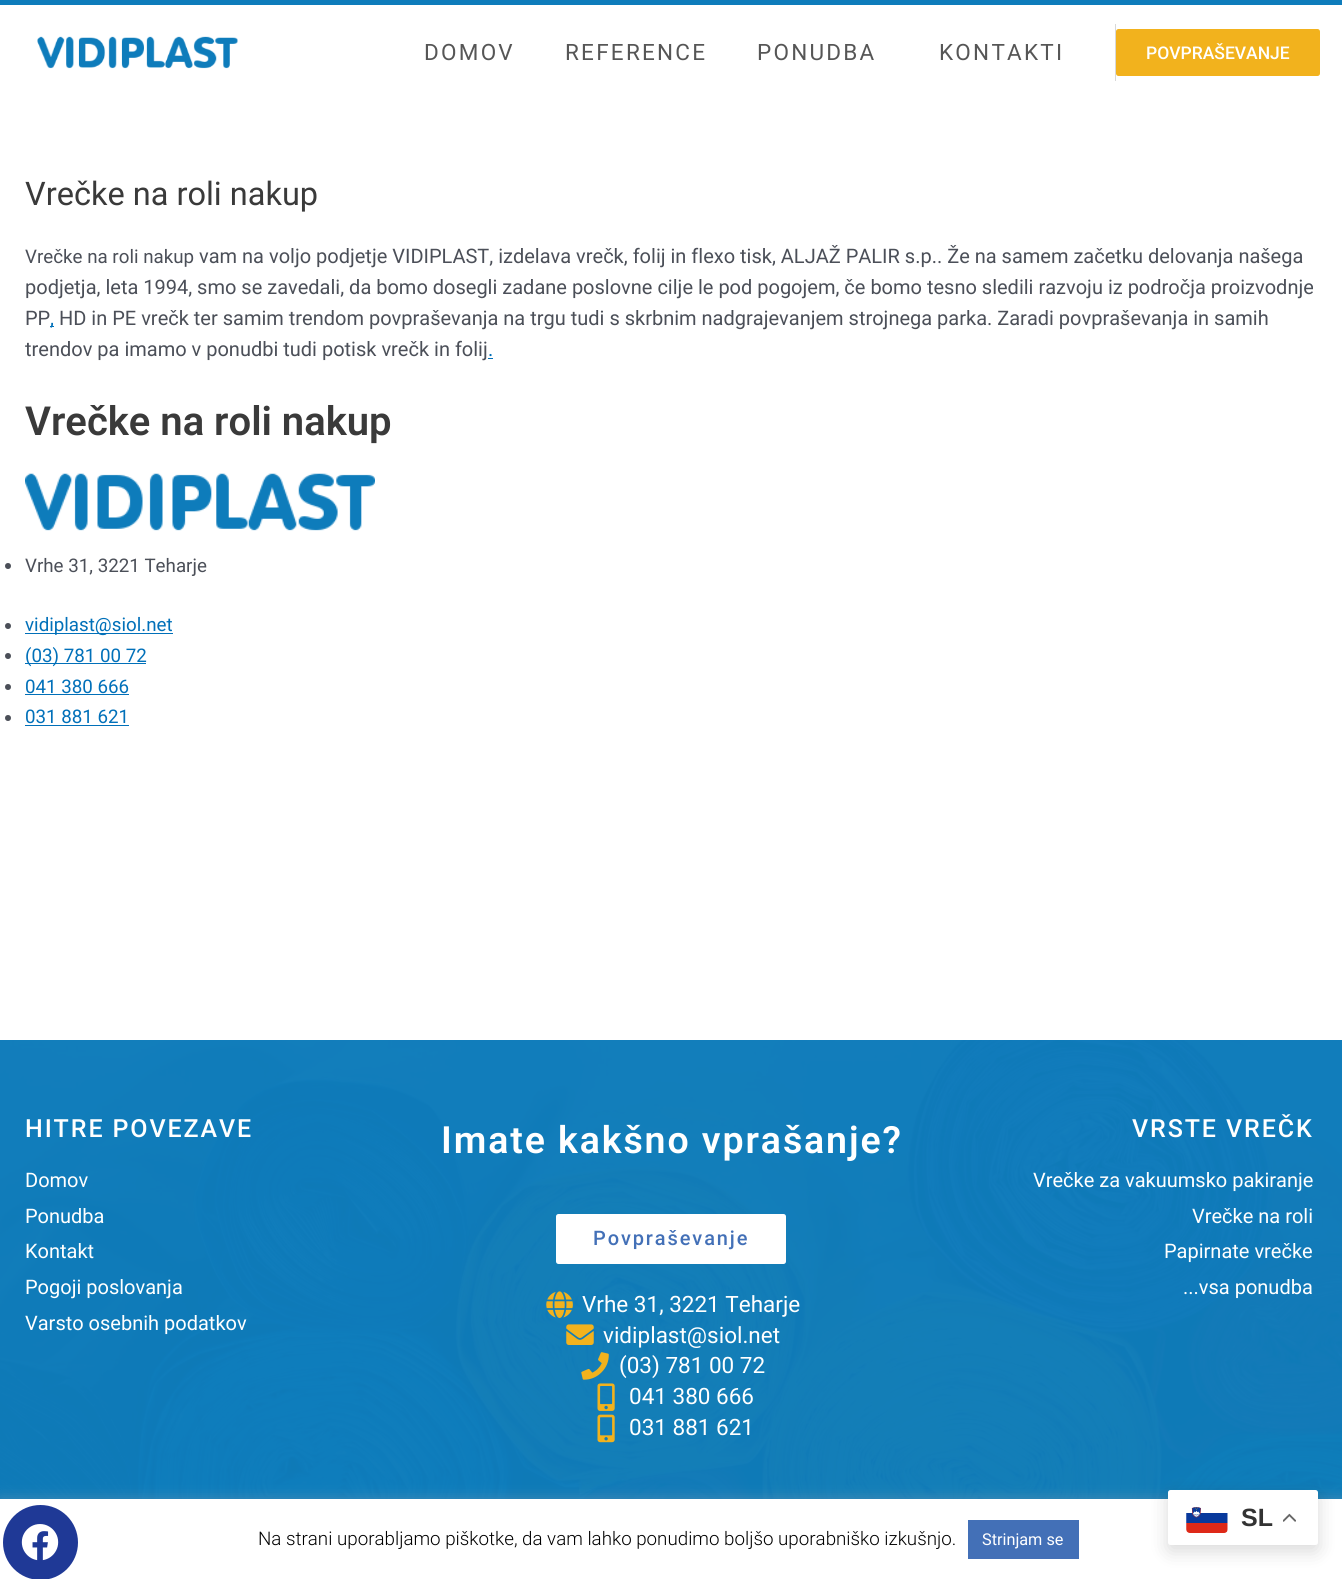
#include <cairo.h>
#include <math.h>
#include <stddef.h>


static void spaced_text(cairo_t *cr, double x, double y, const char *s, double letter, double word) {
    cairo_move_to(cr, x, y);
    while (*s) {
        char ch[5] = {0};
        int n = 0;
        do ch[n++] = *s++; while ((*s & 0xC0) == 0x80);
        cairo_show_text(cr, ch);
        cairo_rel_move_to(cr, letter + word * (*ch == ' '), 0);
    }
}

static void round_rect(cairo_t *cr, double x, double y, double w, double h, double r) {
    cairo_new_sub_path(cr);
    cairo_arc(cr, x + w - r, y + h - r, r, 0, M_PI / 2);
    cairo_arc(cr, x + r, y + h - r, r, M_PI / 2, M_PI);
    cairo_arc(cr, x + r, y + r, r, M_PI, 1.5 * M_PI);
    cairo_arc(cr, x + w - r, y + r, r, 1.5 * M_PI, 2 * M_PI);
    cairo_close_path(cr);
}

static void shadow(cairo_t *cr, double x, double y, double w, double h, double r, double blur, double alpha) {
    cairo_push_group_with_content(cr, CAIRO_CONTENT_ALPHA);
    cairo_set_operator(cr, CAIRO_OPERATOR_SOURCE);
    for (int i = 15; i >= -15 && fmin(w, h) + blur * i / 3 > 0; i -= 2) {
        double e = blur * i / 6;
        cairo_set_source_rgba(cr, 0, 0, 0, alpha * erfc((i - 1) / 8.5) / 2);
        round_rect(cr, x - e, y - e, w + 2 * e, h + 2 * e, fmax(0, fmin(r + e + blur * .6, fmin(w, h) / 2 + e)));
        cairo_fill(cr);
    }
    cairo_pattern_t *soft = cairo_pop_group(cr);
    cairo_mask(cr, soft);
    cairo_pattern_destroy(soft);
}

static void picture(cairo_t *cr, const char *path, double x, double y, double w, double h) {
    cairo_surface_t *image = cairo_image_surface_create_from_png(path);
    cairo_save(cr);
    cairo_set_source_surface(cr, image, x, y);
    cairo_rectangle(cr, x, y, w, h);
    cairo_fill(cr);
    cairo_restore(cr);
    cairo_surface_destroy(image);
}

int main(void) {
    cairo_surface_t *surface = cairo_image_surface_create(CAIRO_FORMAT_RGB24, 1342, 1579);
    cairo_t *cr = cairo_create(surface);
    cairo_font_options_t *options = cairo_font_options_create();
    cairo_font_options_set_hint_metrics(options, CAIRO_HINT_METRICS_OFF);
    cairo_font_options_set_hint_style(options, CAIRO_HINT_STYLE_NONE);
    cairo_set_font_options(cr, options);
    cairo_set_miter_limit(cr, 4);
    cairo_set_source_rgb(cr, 1, 1, 1);
    cairo_paint(cr);
    cairo_set_source_rgb(cr, 0.055, 0.486, 0.733);
    cairo_rectangle(cr, 0, 0, 1342, 5);
    cairo_fill(cr);
    picture(cr, "img1.png", 37, 36, 201, 33);
    cairo_set_source_rgb(cr, 0.847, 0.847, 0.847);
    cairo_rectangle(cr, 1115, 24, 1, 57);
    cairo_fill(cr);
    cairo_select_font_face(cr, "Roboto", CAIRO_FONT_SLANT_NORMAL, CAIRO_FONT_WEIGHT_NORMAL);
    cairo_set_font_size(cr, 22.5);
    cairo_set_source_rgb(cr, 0.337, 0.337, 0.337);
    spaced_text(cr, 424, 60, "DOMOV", 2.25, 0);
    spaced_text(cr, 565, 60, "REFERENCE", 2.25, 0);
    spaced_text(cr, 757, 60, "PONUDBA", 2.25, 0);
    spaced_text(cr, 939, 60, "KONTAKTI", 2.25, 0);
    cairo_set_source_rgb(cr, 0.949, 0.698, 0.114);
    round_rect(cr, 1116, 29, 204, 47, 2.5);
    cairo_fill(cr);
    cairo_select_font_face(cr, "Roboto Medium", CAIRO_FONT_SLANT_NORMAL, CAIRO_FONT_WEIGHT_NORMAL);
    cairo_set_font_size(cr, 17.5);
    cairo_set_source_rgb(cr, 1, 1, 1);
    cairo_move_to(cr, 1146, 59);
    cairo_show_text(cr, "POVPRAŠEVANJE");
    cairo_select_font_face(cr, "Roboto", CAIRO_FONT_SLANT_NORMAL, CAIRO_FONT_WEIGHT_NORMAL);
    cairo_set_font_size(cr, 32.5);
    cairo_set_source_rgb(cr, 0.227, 0.227, 0.227);
    cairo_move_to(cr, 25, 205);
    cairo_show_text(cr, "Vrečke na roli nakup");
    cairo_set_font_size(cr, 18.75);
    cairo_set_source_rgb(cr, 0.294, 0.31, 0.345);
    cairo_move_to(cr, 25, 263);
    cairo_show_text(cr, "Vrečke na roli nakup");
    cairo_set_font_size(cr, 20);
    cairo_move_to(cr, 199, 263);
    cairo_show_text(cr, "vam na voljo podjetje VIDIPLAST, izdelava vrečk, folij in flexo tisk, ALJAŽ PALIR s.p.. Že na samem začetku delovanja našega");
    cairo_move_to(cr, 25, 294);
    cairo_show_text(cr, "podjetja, leta 1994, smo se zavedali, da bomo dosegli zadane poslovne cilje le pod pogojem, če bomo tesno sledili razvoju iz področja proizvodnje");
    cairo_move_to(cr, 25, 325);
    cairo_show_text(cr, "PP");
    cairo_set_source_rgb(cr, 0.004, 0.439, 0.725);
    cairo_rectangle(cr, 50, 326, 4, 1);
    cairo_fill(cr);
    cairo_move_to(cr, 50, 325);
    cairo_show_text(cr, ",");
    cairo_set_source_rgb(cr, 0.294, 0.31, 0.345);
    cairo_move_to(cr, 59, 325);
    cairo_show_text(cr, "HD in PE vrečk ter samim trendom povpraševanja na trgu tudi s skrbnim nadgrajevanjem strojnega parka. Zaradi povpraševanja in samih");
    cairo_move_to(cr, 25, 356);
    cairo_show_text(cr, "trendov pa imamo v ponudbi tudi potisk vrečk in folij");
    cairo_set_source_rgb(cr, 0.004, 0.439, 0.725);
    cairo_move_to(cr, 488, 356);
    cairo_show_text(cr, ".");
    cairo_rectangle(cr, 488, 358, 5, 1);
    cairo_fill(cr);
    cairo_select_font_face(cr, "Roboto SemiBold", CAIRO_FONT_SLANT_NORMAL, CAIRO_FONT_WEIGHT_NORMAL);
    cairo_set_font_size(cr, 40);
    cairo_set_source_rgb(cr, 0.227, 0.227, 0.227);
    cairo_move_to(cr, 25, 435);
    cairo_show_text(cr, "Vrečke na roli nakup");
    picture(cr, "img2.png", 25, 473, 350, 58);
    cairo_set_source_rgb(cr, 0.294, 0.31, 0.345);
    cairo_arc(cr, 8, 566, 3, 0, 2 * M_PI);
    cairo_fill(cr);
    cairo_select_font_face(cr, "Roboto", CAIRO_FONT_SLANT_NORMAL, CAIRO_FONT_WEIGHT_NORMAL);
    cairo_set_font_size(cr, 18.75);
    cairo_move_to(cr, 25, 572);
    cairo_show_text(cr, "Vrhe 31, 3221 Teharje");
    cairo_new_path(cr);
    cairo_arc(cr, 8, 626, 3, 0, 2 * M_PI);
    cairo_fill(cr);
    cairo_set_source_rgb(cr, 0.004, 0.439, 0.725);
    cairo_rectangle(cr, 25, 633, 148, 1);
    cairo_fill(cr);
    cairo_move_to(cr, 25, 631);
    cairo_show_text(cr, "vidiplast@siol.net");
    cairo_set_source_rgb(cr, 0.294, 0.31, 0.345);
    cairo_new_path(cr);
    cairo_arc(cr, 8, 656, 3, 0, 2 * M_PI);
    cairo_fill(cr);
    cairo_set_source_rgb(cr, 0.004, 0.439, 0.725);
    cairo_rectangle(cr, 25, 663, 121, 1);
    cairo_fill(cr);
    cairo_move_to(cr, 25, 662);
    cairo_show_text(cr, "(03) 781 00 72");
    cairo_set_source_rgb(cr, 0.294, 0.31, 0.345);
    cairo_new_path(cr);
    cairo_arc(cr, 8, 687, 3, 0, 2 * M_PI);
    cairo_fill(cr);
    cairo_set_source_rgb(cr, 0.004, 0.439, 0.725);
    cairo_move_to(cr, 25, 693);
    cairo_show_text(cr, "041 380 666");
    cairo_rectangle(cr, 25, 694, 104, 1);
    cairo_fill(cr);
    cairo_set_source_rgb(cr, 0.294, 0.31, 0.345);
    cairo_arc(cr, 8, 718, 3, 0, 2 * M_PI);
    cairo_fill(cr);
    cairo_set_source_rgb(cr, 0.004, 0.439, 0.725);
    cairo_move_to(cr, 25, 723);
    cairo_show_text(cr, "031 881 621");
    cairo_rectangle(cr, 25, 725, 104, 1);
    cairo_fill(cr);
    picture(cr, "img3.png", 0, 1040, 1342, 459);
    cairo_select_font_face(cr, "Roboto Medium", CAIRO_FONT_SLANT_NORMAL, CAIRO_FONT_WEIGHT_NORMAL);
    cairo_set_font_size(cr, 25);
    cairo_set_source_rgb(cr, 1, 1, 1);
    spaced_text(cr, 25, 1137, "HITRE POVEZAVE", 1.9, 0);
    cairo_select_font_face(cr, "Roboto", CAIRO_FONT_SLANT_NORMAL, CAIRO_FONT_WEIGHT_NORMAL);
    cairo_set_font_size(cr, 20);
    cairo_move_to(cr, 25, 1187);
    cairo_show_text(cr, "Domov");
    cairo_move_to(cr, 25, 1223);
    cairo_show_text(cr, "Ponudba");
    cairo_move_to(cr, 25, 1258);
    cairo_show_text(cr, "Kontakt");
    cairo_move_to(cr, 25, 1294);
    cairo_show_text(cr, "Pogoji poslovanja");
    cairo_move_to(cr, 25, 1330);
    cairo_show_text(cr, "Varsto osebnih podatkov");
    cairo_select_font_face(cr, "Roboto SemiBold", CAIRO_FONT_SLANT_NORMAL, CAIRO_FONT_WEIGHT_NORMAL);
    cairo_set_font_size(cr, 37.5);
    spaced_text(cr, 441, 1153, "Imate kakšno vprašanje?", 1.9, 0);
    round_rect(cr, 556, 1214, 230, 50, 2.5);
    cairo_fill(cr);
    cairo_select_font_face(cr, "Roboto Medium", CAIRO_FONT_SLANT_NORMAL, CAIRO_FONT_WEIGHT_NORMAL);
    cairo_set_font_size(cr, 20);
    cairo_set_source_rgb(cr, 0.263, 0.439, 0.718);
    spaced_text(cr, 593, 1245, "Povpraševanje", 1.9, 0);
    picture(cr, "img4.png", 546, 1291, 27, 27);
    cairo_select_font_face(cr, "Roboto", CAIRO_FONT_SLANT_NORMAL, CAIRO_FONT_WEIGHT_NORMAL);
    cairo_set_font_size(cr, 22.5);
    cairo_set_source_rgb(cr, 1, 1, 1);
    cairo_move_to(cr, 582, 1312);
    cairo_show_text(cr, "Vrhe 31, 3221 Teharje");
    picture(cr, "img5.png", 566, 1324, 28, 21);
    cairo_move_to(cr, 603, 1343);
    cairo_show_text(cr, "vidiplast@siol.net");
    picture(cr, "img6.png", 581, 1352, 28, 28);
    cairo_move_to(cr, 619, 1373);
    cairo_show_text(cr, "(03) 781 00 72");
    picture(cr, "img7.png", 597, 1383, 18, 28);
    cairo_move_to(cr, 629, 1404);
    cairo_show_text(cr, "041 380 666");
    picture(cr, "img8.png", 597, 1414, 18, 29);
    cairo_move_to(cr, 629, 1435);
    cairo_show_text(cr, "031 881 621");
    cairo_select_font_face(cr, "Roboto Medium", CAIRO_FONT_SLANT_NORMAL, CAIRO_FONT_WEIGHT_NORMAL);
    cairo_set_font_size(cr, 25);
    spaced_text(cr, 1132, 1137, "VRSTE VREČK", 1.9, 0);
    cairo_select_font_face(cr, "Roboto", CAIRO_FONT_SLANT_NORMAL, CAIRO_FONT_WEIGHT_NORMAL);
    cairo_set_font_size(cr, 20);
    cairo_move_to(cr, 1033, 1187);
    cairo_show_text(cr, "Vrečke za vakuumsko pakiranje");
    cairo_move_to(cr, 1192, 1223);
    cairo_show_text(cr, "Vrečke na roli");
    cairo_move_to(cr, 1164, 1258);
    cairo_show_text(cr, "Papirnate vrečke");
    cairo_move_to(cr, 1183, 1294);
    cairo_show_text(cr, "...vsa ponudba");
    cairo_set_source_rgb(cr, 0.675, 0.671, 0.671);
    shadow(cr, 0, 1498, 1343, 81, 0, 6, 0.3);
    cairo_set_source_rgb(cr, 1, 1, 1);
    cairo_rectangle(cr, 0, 1499, 1342, 80);
    cairo_fill(cr);
    cairo_set_source_rgb(cr, 0.122, 0.224, 0.588);
    cairo_arc(cr, 40.5, 1542.5, 37.5, 0, 2 * M_PI);
    cairo_fill(cr);
    picture(cr, "img9.png", 21, 1524, 38, 37);
    cairo_set_source_rgb(cr, 0, 0, 0);
    shadow(cr, 1168, 1496, 150, 55, 2.5, 9.5, 0.15);
    cairo_set_source_rgb(cr, 1, 1, 1);
    round_rect(cr, 1168, 1490, 150, 55, 2.5);
    cairo_fill(cr);
    picture(cr, "img10.png", 1186, 1507, 42, 26);
    cairo_select_font_face(cr, "Liberation Sans", CAIRO_FONT_SLANT_NORMAL, CAIRO_FONT_WEIGHT_BOLD);
    cairo_set_font_size(cr, 25);
    cairo_set_source_rgb(cr, 0.2, 0.2, 0.2);
    cairo_move_to(cr, 1241, 1526);
    cairo_show_text(cr, "SL");
    picture(cr, "img11.png", 1283, 1513, 13, 9);
    cairo_select_font_face(cr, "Roboto Light", CAIRO_FONT_SLANT_NORMAL, CAIRO_FONT_WEIGHT_NORMAL);
    cairo_set_font_size(cr, 18.75);
    cairo_set_source_rgb(cr, 0, 0, 0);
    cairo_move_to(cr, 258, 1545);
    cairo_show_text(cr, "Na strani uporabljamo piškotke, da vam lahko ponudimo boljšo uporabniško izkušnjo.");
    cairo_set_source_rgb(cr, 0.263, 0.439, 0.718);
    cairo_rectangle(cr, 968, 1520, 111, 39);
    cairo_fill(cr);
    cairo_select_font_face(cr, "Roboto", CAIRO_FONT_SLANT_NORMAL, CAIRO_FONT_WEIGHT_NORMAL);
    cairo_set_font_size(cr, 16.25);
    cairo_set_source_rgb(cr, 1, 1, 1);
    cairo_move_to(cr, 982, 1545);
    cairo_show_text(cr, "Strinjam se");
    cairo_surface_write_to_png(surface, "page.png");
    cairo_font_options_destroy(options);
    cairo_destroy(cr);
    cairo_surface_destroy(surface);
    return 0;
}
